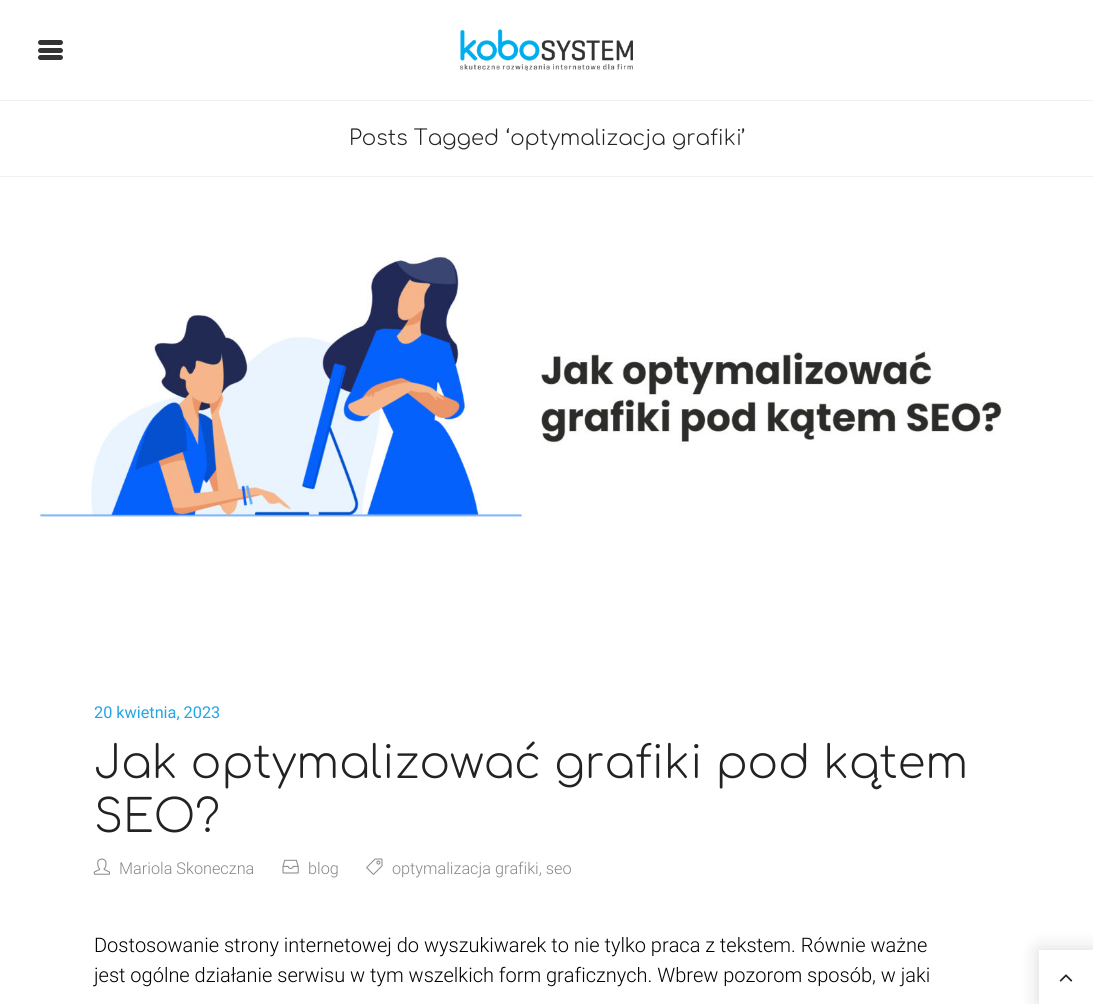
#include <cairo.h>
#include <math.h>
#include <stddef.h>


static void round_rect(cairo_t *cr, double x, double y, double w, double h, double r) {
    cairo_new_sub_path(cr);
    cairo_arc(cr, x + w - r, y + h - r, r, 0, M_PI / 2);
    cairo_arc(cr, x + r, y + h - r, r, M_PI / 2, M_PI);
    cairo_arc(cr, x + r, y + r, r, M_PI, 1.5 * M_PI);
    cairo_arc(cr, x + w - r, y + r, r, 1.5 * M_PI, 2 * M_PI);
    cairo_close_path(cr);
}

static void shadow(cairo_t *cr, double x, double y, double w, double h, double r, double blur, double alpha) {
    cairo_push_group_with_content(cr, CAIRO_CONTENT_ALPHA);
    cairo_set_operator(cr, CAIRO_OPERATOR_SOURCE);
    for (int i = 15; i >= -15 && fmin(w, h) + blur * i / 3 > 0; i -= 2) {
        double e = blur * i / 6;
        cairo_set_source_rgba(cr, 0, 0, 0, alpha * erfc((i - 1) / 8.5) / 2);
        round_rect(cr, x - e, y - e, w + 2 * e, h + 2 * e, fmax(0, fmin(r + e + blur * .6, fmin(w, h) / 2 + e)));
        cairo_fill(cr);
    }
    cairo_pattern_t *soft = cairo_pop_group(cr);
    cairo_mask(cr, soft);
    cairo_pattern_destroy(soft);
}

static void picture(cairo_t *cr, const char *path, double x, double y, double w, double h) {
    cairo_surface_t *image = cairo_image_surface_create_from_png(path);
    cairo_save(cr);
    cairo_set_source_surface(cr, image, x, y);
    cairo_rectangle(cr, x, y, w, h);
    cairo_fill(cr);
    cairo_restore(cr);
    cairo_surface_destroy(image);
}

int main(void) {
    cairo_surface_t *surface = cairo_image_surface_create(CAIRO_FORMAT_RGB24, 1093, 1004);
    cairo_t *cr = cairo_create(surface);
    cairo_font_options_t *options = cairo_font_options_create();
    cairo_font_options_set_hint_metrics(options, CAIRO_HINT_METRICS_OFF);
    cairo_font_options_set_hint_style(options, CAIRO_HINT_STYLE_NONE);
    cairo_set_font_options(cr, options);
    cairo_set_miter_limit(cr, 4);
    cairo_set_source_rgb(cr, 1, 1, 1);
    cairo_paint(cr);
    cairo_set_source_rgb(cr, 0.941, 0.941, 0.941);
    cairo_rectangle(cr, 0, 100, 1093, 1);
    cairo_fill(cr);
    cairo_set_source_rgb(cr, 0.2, 0.2, 0.2);
    round_rect(cr, 38, 48, 25, 5, 2.5);
    cairo_fill(cr);
    round_rect(cr, 38, 40, 25, 5, 2.5);
    cairo_fill(cr);
    round_rect(cr, 38, 55, 25, 5, 2.5);
    cairo_fill(cr);
    picture(cr, "img1.png", 460, 29, 173, 42);
    cairo_set_source_rgb(cr, 0.941, 0.941, 0.941);
    cairo_rectangle(cr, 0, 176, 1093, 1);
    cairo_fill(cr);
    cairo_select_font_face(cr, "Comfortaa Light", CAIRO_FONT_SLANT_NORMAL, CAIRO_FONT_WEIGHT_NORMAL);
    cairo_set_font_size(cr, 21.25);
    cairo_set_source_rgb(cr, 0.133, 0.133, 0.133);
    cairo_move_to(cr, 349, 145);
    cairo_show_text(cr, "Posts Tagged ‘optymalizacja grafiki’");
    picture(cr, "img2.png", 38, 254, 964, 263);
    cairo_select_font_face(cr, "Roboto", CAIRO_FONT_SLANT_NORMAL, CAIRO_FONT_WEIGHT_NORMAL);
    cairo_set_font_size(cr, 16.25);
    cairo_set_source_rgb(cr, 0.141, 0.647, 0.898);
    cairo_move_to(cr, 94, 718);
    cairo_show_text(cr, "20 kwietnia, 2023");
    cairo_select_font_face(cr, "Comfortaa Light", CAIRO_FONT_SLANT_NORMAL, CAIRO_FONT_WEIGHT_NORMAL);
    cairo_set_font_size(cr, 45);
    cairo_set_source_rgb(cr, 0.133, 0.133, 0.133);
    cairo_move_to(cr, 94, 778);
    cairo_show_text(cr, "Jak optymalizować grafiki pod kątem");
    cairo_move_to(cr, 94, 832);
    cairo_show_text(cr, "SEO?");
    picture(cr, "img3.png", 93, 858, 17, 17);
    cairo_select_font_face(cr, "Roboto Light", CAIRO_FONT_SLANT_NORMAL, CAIRO_FONT_WEIGHT_NORMAL);
    cairo_set_font_size(cr, 16.25);
    cairo_set_source_rgb(cr, 0.533, 0.533, 0.533);
    cairo_move_to(cr, 119, 874);
    cairo_show_text(cr, "Mariola Skoneczna");
    picture(cr, "img4.png", 282, 859, 17, 15);
    cairo_move_to(cr, 308, 874);
    cairo_show_text(cr, "blog");
    picture(cr, "img5.png", 366, 858, 17, 17);
    cairo_move_to(cr, 392, 874);
    cairo_show_text(cr, "optymalizacja grafiki, seo");
    cairo_set_font_size(cr, 20);
    cairo_set_source_rgb(cr, 0, 0, 0);
    cairo_move_to(cr, 94, 952);
    cairo_show_text(cr, "Dostosowanie strony internetowej do wyszukiwarek to nie tylko praca z tekstem. Równie ważne");
    cairo_move_to(cr, 94, 982);
    cairo_show_text(cr, "jest ogólne działanie serwisu w tym wszelkich form graficznych. Wbrew pozorom sposób, w jaki");
    cairo_save(cr);
    cairo_set_fill_rule(cr, CAIRO_FILL_RULE_EVEN_ODD);
    cairo_new_path(cr);
    cairo_move_to(cr, 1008, 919);
    cairo_line_to(cr, 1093, 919);
    cairo_line_to(cr, 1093, 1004);
    cairo_line_to(cr, 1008, 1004);
    cairo_close_path(cr);
    cairo_move_to(cr, 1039, 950);
    cairo_line_to(cr, 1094, 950);
    cairo_line_to(cr, 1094, 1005);
    cairo_line_to(cr, 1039, 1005);
    cairo_close_path(cr);
    cairo_clip(cr);
    cairo_set_source_rgb(cr, 0, 0, 0);
    shadow(cr, 1039, 950, 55, 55, 0, 10, 0.15);
    cairo_restore(cr);
    picture(cr, "img6.png", 1059, 974, 14, 8);
    cairo_surface_write_to_png(surface, "page.png");
    cairo_font_options_destroy(options);
    cairo_destroy(cr);
    cairo_surface_destroy(surface);
    return 0;
}
